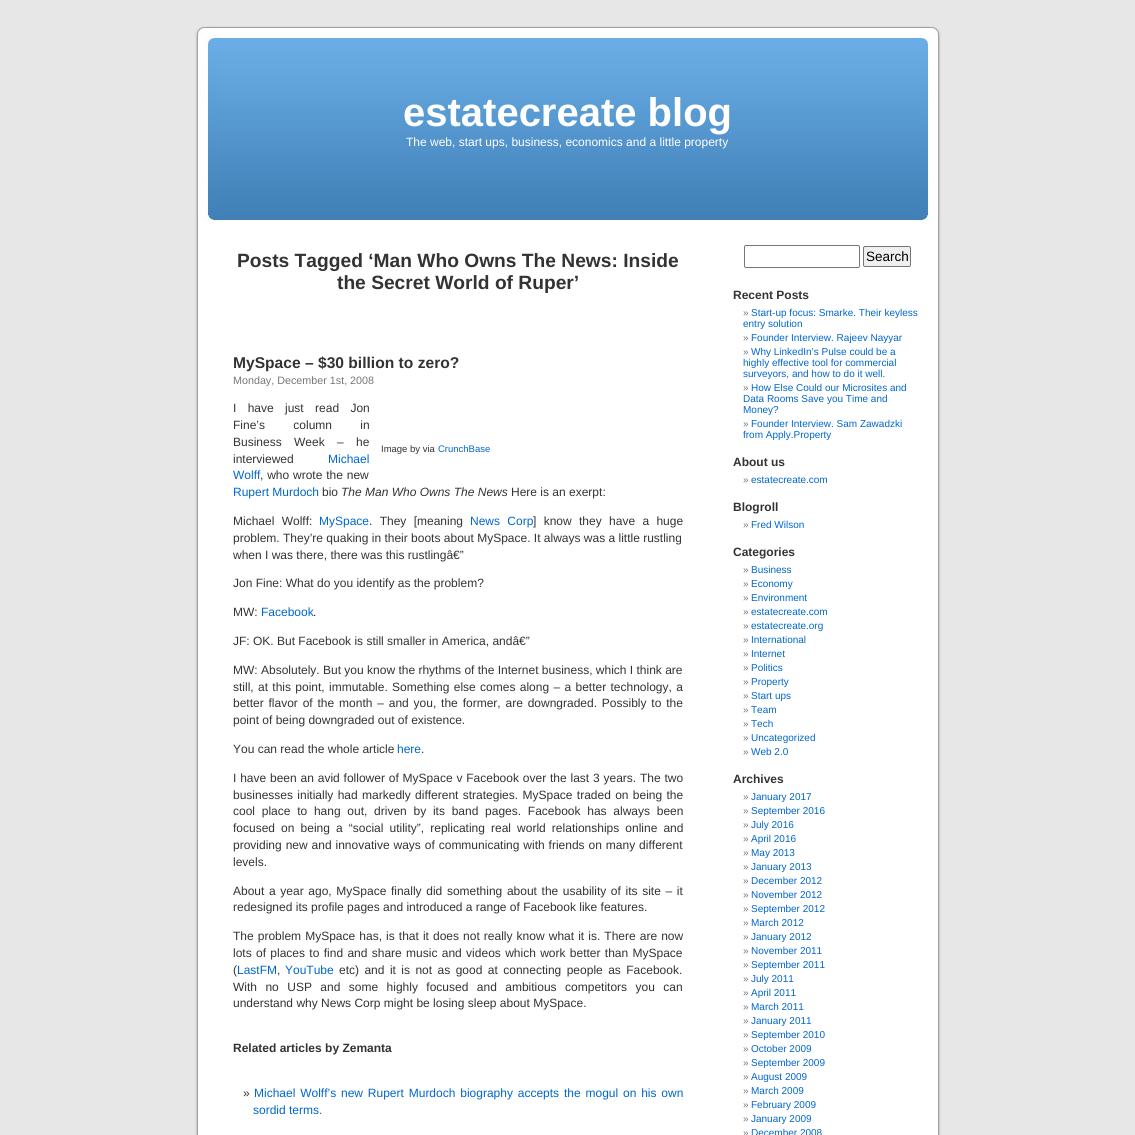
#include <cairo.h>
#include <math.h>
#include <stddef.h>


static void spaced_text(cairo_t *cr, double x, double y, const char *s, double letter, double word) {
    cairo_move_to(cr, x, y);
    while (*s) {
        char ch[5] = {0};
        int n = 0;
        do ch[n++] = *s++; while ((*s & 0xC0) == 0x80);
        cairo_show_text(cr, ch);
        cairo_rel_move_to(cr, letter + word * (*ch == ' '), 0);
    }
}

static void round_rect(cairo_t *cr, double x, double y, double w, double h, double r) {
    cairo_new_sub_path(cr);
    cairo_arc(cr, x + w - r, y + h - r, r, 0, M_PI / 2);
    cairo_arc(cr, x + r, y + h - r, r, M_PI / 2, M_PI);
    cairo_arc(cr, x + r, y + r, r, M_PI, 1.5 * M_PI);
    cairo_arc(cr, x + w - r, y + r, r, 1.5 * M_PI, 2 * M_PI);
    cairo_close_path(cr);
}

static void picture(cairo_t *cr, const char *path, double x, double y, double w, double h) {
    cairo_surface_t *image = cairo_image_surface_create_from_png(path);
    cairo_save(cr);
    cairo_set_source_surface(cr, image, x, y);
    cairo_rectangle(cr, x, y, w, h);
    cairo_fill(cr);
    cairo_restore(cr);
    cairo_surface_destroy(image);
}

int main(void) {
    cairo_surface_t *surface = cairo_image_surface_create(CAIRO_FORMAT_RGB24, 1135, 1135);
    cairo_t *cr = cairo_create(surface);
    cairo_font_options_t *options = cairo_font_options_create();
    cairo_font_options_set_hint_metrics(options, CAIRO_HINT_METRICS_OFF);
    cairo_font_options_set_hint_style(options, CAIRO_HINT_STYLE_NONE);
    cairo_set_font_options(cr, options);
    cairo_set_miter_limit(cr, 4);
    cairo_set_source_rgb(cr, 0.906, 0.906, 0.906);
    cairo_paint(cr);
    picture(cr, "img1.png", 195, 220, 746, 915);
    picture(cr, "img2.png", 189, 20, 758, 200);
    cairo_select_font_face(cr, "Liberation Sans", CAIRO_FONT_SLANT_NORMAL, CAIRO_FONT_WEIGHT_BOLD);
    cairo_set_font_size(cr, 40);
    cairo_set_source_rgb(cr, 1, 1, 1);
    cairo_move_to(cr, 403, 126);
    cairo_show_text(cr, "estatecreate blog");
    cairo_select_font_face(cr, "Liberation Sans", CAIRO_FONT_SLANT_NORMAL, CAIRO_FONT_WEIGHT_NORMAL);
    cairo_set_font_size(cr, 12);
    cairo_move_to(cr, 406, 146);
    cairo_show_text(cr, "The web, start ups, business, economics and a little property");
    cairo_select_font_face(cr, "Liberation Sans", CAIRO_FONT_SLANT_NORMAL, CAIRO_FONT_WEIGHT_BOLD);
    cairo_set_font_size(cr, 19.2);
    cairo_set_source_rgb(cr, 0.2, 0.2, 0.2);
    cairo_move_to(cr, 237, 267);
    cairo_show_text(cr, "Posts Tagged ‘Man Who Owns The News: Inside");
    cairo_move_to(cr, 337, 289);
    cairo_show_text(cr, "the Secret World of Ruper’");
    cairo_set_font_size(cr, 15.6);
    cairo_move_to(cr, 233, 368);
    cairo_show_text(cr, "MySpace – $30 billion to zero?");
    cairo_select_font_face(cr, "Liberation Sans", CAIRO_FONT_SLANT_NORMAL, CAIRO_FONT_WEIGHT_NORMAL);
    cairo_set_font_size(cr, 10.75);
    cairo_set_source_rgb(cr, 0.467, 0.467, 0.467);
    cairo_move_to(cr, 233, 384);
    cairo_show_text(cr, "Monday, December 1st, 2008");
    cairo_set_font_size(cr, 12);
    cairo_set_source_rgb(cr, 0.2, 0.2, 0.2);
    spaced_text(cr, 233, 412, "I have just read Jon", 0, 8);
    spaced_text(cr, 233, 429, "Fine’s column in", 0, 25);
    spaced_text(cr, 233, 446, "Business Week – he", 0, 9);
    cairo_move_to(cr, 233, 463);
    cairo_show_text(cr, "interviewed");
    cairo_set_source_rgb(cr, 0, 0.4, 0.8);
    cairo_move_to(cr, 328, 463);
    cairo_show_text(cr, "Michael");
    cairo_move_to(cr, 233, 479);
    cairo_show_text(cr, "Wolff");
    cairo_set_source_rgb(cr, 0.2, 0.2, 0.2);
    spaced_text(cr, 260, 479, ", who wrote the new", 0, 0.5);
    cairo_set_source_rgb(cr, 0, 0.4, 0.8);
    cairo_move_to(cr, 233, 496);
    cairo_show_text(cr, "Rupert Murdoch");
    cairo_set_source_rgb(cr, 0.2, 0.2, 0.2);
    cairo_move_to(cr, 322, 496);
    cairo_show_text(cr, "bio");
    cairo_select_font_face(cr, "Liberation Sans", CAIRO_FONT_SLANT_ITALIC, CAIRO_FONT_WEIGHT_NORMAL);
    cairo_move_to(cr, 341, 496);
    cairo_show_text(cr, "The Man Who Owns The News");
    cairo_select_font_face(cr, "Liberation Sans", CAIRO_FONT_SLANT_NORMAL, CAIRO_FONT_WEIGHT_NORMAL);
    cairo_move_to(cr, 511, 496);
    cairo_show_text(cr, "Here is an exerpt:");
    cairo_set_font_size(cr, 9.5);
    cairo_move_to(cr, 381, 452);
    cairo_show_text(cr, "Image by via");
    cairo_set_source_rgb(cr, 0, 0.4, 0.8);
    cairo_move_to(cr, 438, 452);
    cairo_show_text(cr, "CrunchBase");
    cairo_set_font_size(cr, 12);
    cairo_set_source_rgb(cr, 0.2, 0.2, 0.2);
    spaced_text(cr, 233, 525, "Michael Wolff:", 0, 4);
    cairo_set_source_rgb(cr, 0, 0.4, 0.8);
    cairo_move_to(cr, 319, 525);
    cairo_show_text(cr, "MySpace");
    cairo_set_source_rgb(cr, 0.2, 0.2, 0.2);
    spaced_text(cr, 369, 525, ". They [meaning", 0, 4);
    cairo_set_source_rgb(cr, 0, 0.4, 0.8);
    spaced_text(cr, 470, 525, "News Corp", 0, 4);
    cairo_set_source_rgb(cr, 0.2, 0.2, 0.2);
    spaced_text(cr, 533, 525, "] know they have a huge", 0, 4);
    cairo_move_to(cr, 233, 542);
    cairo_show_text(cr, "problem. They’re quaking in their boots about MySpace. It always was a little rustling");
    cairo_move_to(cr, 233, 559);
    cairo_show_text(cr, "when I was there, there was this rustlingâ€”");
    cairo_move_to(cr, 233, 587);
    cairo_show_text(cr, "Jon Fine: What do you identify as the problem?");
    cairo_move_to(cr, 233, 616);
    cairo_show_text(cr, "MW:");
    cairo_set_source_rgb(cr, 0, 0.4, 0.8);
    cairo_move_to(cr, 261, 616);
    cairo_show_text(cr, "Facebook");
    cairo_set_source_rgb(cr, 0.2, 0.2, 0.2);
    cairo_move_to(cr, 313, 616);
    cairo_show_text(cr, ".");
    cairo_move_to(cr, 233, 645);
    cairo_show_text(cr, "JF: OK. But Facebook is still smaller in America, andâ€”");
    cairo_move_to(cr, 233, 674);
    cairo_show_text(cr, "MW: Absolutely. But you know the rhythms of the Internet business, which I think are");
    spaced_text(cr, 233, 691, "still, at this point, immutable. Something else comes along – a better technology, a", 0, 1);
    spaced_text(cr, 233, 707, "better flavor of the month – and you, the former, are downgraded. Possibly to the", 0, 1.5);
    cairo_move_to(cr, 233, 724);
    cairo_show_text(cr, "point of being downgraded out of existence.");
    cairo_move_to(cr, 233, 753);
    cairo_show_text(cr, "You can read the whole article");
    cairo_set_source_rgb(cr, 0, 0.4, 0.8);
    cairo_move_to(cr, 397, 753);
    cairo_show_text(cr, "here");
    cairo_set_source_rgb(cr, 0.2, 0.2, 0.2);
    cairo_move_to(cr, 421, 753);
    cairo_show_text(cr, ".");
    spaced_text(cr, 233, 782, "I have been an avid follower of MySpace v Facebook over the last 3 years. The two", 0, 0.5);
    spaced_text(cr, 233, 799, "businesses initially had markedly different strategies. MySpace traded on being the", 0, 1);
    spaced_text(cr, 233, 815, "cool place to hang out, driven by its band pages. Facebook has always been", 0, 3.4);
    spaced_text(cr, 233, 832, "focused on being a “social utility”, replicating real world relationships online and", 0, 2.75);
    spaced_text(cr, 233, 849, "providing new and innovative ways of communicating with friends on many different", 0, 0.6);
    cairo_move_to(cr, 233, 866);
    cairo_show_text(cr, "levels.");
    spaced_text(cr, 233, 895, "About a year ago, MySpace finally did something about the usability of its site – it", 0, 1.3);
    cairo_move_to(cr, 233, 911);
    cairo_show_text(cr, "redesigned its profile pages and introduced a range of Facebook like features.");
    spaced_text(cr, 233, 940, "The problem MySpace has, is that it does not really know what it is. There are now", 0, 0.75);
    spaced_text(cr, 233, 957, "lots of places to find and share music and videos which work better than MySpace", 0, 1);
    cairo_move_to(cr, 233, 974);
    cairo_show_text(cr, "(");
    cairo_set_source_rgb(cr, 0, 0.4, 0.8);
    cairo_move_to(cr, 237, 974);
    cairo_show_text(cr, "LastFM");
    cairo_set_source_rgb(cr, 0.2, 0.2, 0.2);
    cairo_move_to(cr, 277, 974);
    cairo_show_text(cr, ",");
    cairo_set_source_rgb(cr, 0, 0.4, 0.8);
    cairo_move_to(cr, 285, 974);
    cairo_show_text(cr, "YouTube");
    cairo_set_source_rgb(cr, 0.2, 0.2, 0.2);
    spaced_text(cr, 339, 974, "etc) and it is not as good at connecting people as Facebook.", 0, 2.1);
    spaced_text(cr, 233, 991, "With no USP and some highly focused and ambitious competitors you can", 0, 5.1);
    cairo_move_to(cr, 233, 1007);
    cairo_show_text(cr, "understand why News Corp might be losing sleep about MySpace.");
    cairo_select_font_face(cr, "Liberation Sans", CAIRO_FONT_SLANT_NORMAL, CAIRO_FONT_WEIGHT_BOLD);
    cairo_move_to(cr, 233, 1052);
    cairo_show_text(cr, "Related articles by Zemanta");
    cairo_select_font_face(cr, "Liberation Sans", CAIRO_FONT_SLANT_NORMAL, CAIRO_FONT_WEIGHT_NORMAL);
    cairo_move_to(cr, 243, 1097);
    cairo_show_text(cr, "»");
    cairo_set_source_rgb(cr, 0, 0.4, 0.8);
    spaced_text(cr, 254, 1097, "Michael Wolff’s new Rupert Murdoch biography accepts the mogul on his own", 0, 1.5);
    cairo_move_to(cr, 253, 1114);
    cairo_show_text(cr, "sordid terms.");
    round_rect(cr, 744.5, 245.5, 115, 22, 1.5);
    cairo_set_source_rgb(cr, 0.463, 0.463, 0.463);
    cairo_set_line_width(cr, 1);
    cairo_stroke(cr);
    cairo_set_source_rgb(cr, 0.937, 0.937, 0.937);
    round_rect(cr, 863.5, 246.5, 47, 20, 1.5);
    cairo_fill_preserve(cr);
    cairo_set_source_rgb(cr, 0.463, 0.463, 0.463);
    cairo_stroke(cr);
    cairo_set_font_size(cr, 13.5);
    cairo_set_source_rgb(cr, 0, 0, 0);
    cairo_move_to(cr, 866, 261);
    cairo_show_text(cr, "Search");
    cairo_select_font_face(cr, "Liberation Sans", CAIRO_FONT_SLANT_NORMAL, CAIRO_FONT_WEIGHT_BOLD);
    cairo_set_font_size(cr, 12);
    cairo_set_source_rgb(cr, 0.2, 0.2, 0.2);
    cairo_move_to(cr, 733, 299);
    cairo_show_text(cr, "Recent Posts");
    cairo_select_font_face(cr, "Liberation Sans", CAIRO_FONT_SLANT_NORMAL, CAIRO_FONT_WEIGHT_NORMAL);
    cairo_set_font_size(cr, 10);
    cairo_set_source_rgb(cr, 0.467, 0.467, 0.467);
    cairo_move_to(cr, 743, 316);
    cairo_show_text(cr, "»");
    cairo_set_source_rgb(cr, 0, 0.4, 0.8);
    cairo_move_to(cr, 751, 316);
    cairo_show_text(cr, "Start-up focus: Smarke. Their keyless");
    cairo_move_to(cr, 743, 327);
    cairo_show_text(cr, "entry solution");
    cairo_set_source_rgb(cr, 0.467, 0.467, 0.467);
    cairo_move_to(cr, 743, 341);
    cairo_show_text(cr, "»");
    cairo_set_source_rgb(cr, 0, 0.4, 0.8);
    cairo_move_to(cr, 751, 341);
    cairo_show_text(cr, "Founder Interview. Rajeev Nayyar");
    cairo_set_source_rgb(cr, 0.467, 0.467, 0.467);
    cairo_move_to(cr, 743, 355);
    cairo_show_text(cr, "»");
    cairo_set_source_rgb(cr, 0, 0.4, 0.8);
    cairo_move_to(cr, 751, 355);
    cairo_show_text(cr, "Why LinkedIn’s Pulse could be a");
    cairo_move_to(cr, 743, 366);
    cairo_show_text(cr, "highly effective tool for commercial");
    cairo_move_to(cr, 743, 377);
    cairo_show_text(cr, "surveyors, and how to do it well.");
    cairo_set_source_rgb(cr, 0.467, 0.467, 0.467);
    cairo_move_to(cr, 743, 391);
    cairo_show_text(cr, "»");
    cairo_set_source_rgb(cr, 0, 0.4, 0.8);
    cairo_move_to(cr, 751, 391);
    cairo_show_text(cr, "How Else Could our Microsites and");
    cairo_move_to(cr, 743, 402);
    cairo_show_text(cr, "Data Rooms Save you Time and");
    cairo_move_to(cr, 743, 413);
    cairo_show_text(cr, "Money?");
    cairo_set_source_rgb(cr, 0.467, 0.467, 0.467);
    cairo_move_to(cr, 743, 427);
    cairo_show_text(cr, "»");
    cairo_set_source_rgb(cr, 0, 0.4, 0.8);
    cairo_move_to(cr, 751, 427);
    cairo_show_text(cr, "Founder Interview. Sam Zawadzki");
    cairo_move_to(cr, 743, 438);
    cairo_show_text(cr, "from Apply.Property");
    cairo_select_font_face(cr, "Liberation Sans", CAIRO_FONT_SLANT_NORMAL, CAIRO_FONT_WEIGHT_BOLD);
    cairo_set_font_size(cr, 12);
    cairo_set_source_rgb(cr, 0.2, 0.2, 0.2);
    cairo_move_to(cr, 733, 466);
    cairo_show_text(cr, "About us");
    cairo_select_font_face(cr, "Liberation Sans", CAIRO_FONT_SLANT_NORMAL, CAIRO_FONT_WEIGHT_NORMAL);
    cairo_set_font_size(cr, 10);
    cairo_set_source_rgb(cr, 0.467, 0.467, 0.467);
    cairo_move_to(cr, 743, 483);
    cairo_show_text(cr, "»");
    cairo_set_source_rgb(cr, 0, 0.4, 0.8);
    cairo_move_to(cr, 751, 483);
    cairo_show_text(cr, "estatecreate.com");
    cairo_select_font_face(cr, "Liberation Sans", CAIRO_FONT_SLANT_NORMAL, CAIRO_FONT_WEIGHT_BOLD);
    cairo_set_font_size(cr, 12);
    cairo_set_source_rgb(cr, 0.2, 0.2, 0.2);
    cairo_move_to(cr, 733, 511);
    cairo_show_text(cr, "Blogroll");
    cairo_select_font_face(cr, "Liberation Sans", CAIRO_FONT_SLANT_NORMAL, CAIRO_FONT_WEIGHT_NORMAL);
    cairo_set_font_size(cr, 10);
    cairo_set_source_rgb(cr, 0.467, 0.467, 0.467);
    cairo_move_to(cr, 743, 528);
    cairo_show_text(cr, "»");
    cairo_set_source_rgb(cr, 0, 0.4, 0.8);
    cairo_move_to(cr, 751, 528);
    cairo_show_text(cr, "Fred Wilson");
    cairo_select_font_face(cr, "Liberation Sans", CAIRO_FONT_SLANT_NORMAL, CAIRO_FONT_WEIGHT_BOLD);
    cairo_set_font_size(cr, 12);
    cairo_set_source_rgb(cr, 0.2, 0.2, 0.2);
    cairo_move_to(cr, 733, 556);
    cairo_show_text(cr, "Categories");
    cairo_select_font_face(cr, "Liberation Sans", CAIRO_FONT_SLANT_NORMAL, CAIRO_FONT_WEIGHT_NORMAL);
    cairo_set_font_size(cr, 10);
    cairo_set_source_rgb(cr, 0.467, 0.467, 0.467);
    cairo_move_to(cr, 743, 573);
    cairo_show_text(cr, "»");
    cairo_set_source_rgb(cr, 0, 0.4, 0.8);
    cairo_move_to(cr, 751, 573);
    cairo_show_text(cr, "Business");
    cairo_set_source_rgb(cr, 0.467, 0.467, 0.467);
    cairo_move_to(cr, 743, 587);
    cairo_show_text(cr, "»");
    cairo_set_source_rgb(cr, 0, 0.4, 0.8);
    cairo_move_to(cr, 751, 587);
    cairo_show_text(cr, "Economy");
    cairo_set_source_rgb(cr, 0.467, 0.467, 0.467);
    cairo_move_to(cr, 743, 601);
    cairo_show_text(cr, "»");
    cairo_set_source_rgb(cr, 0, 0.4, 0.8);
    cairo_move_to(cr, 751, 601);
    cairo_show_text(cr, "Environment");
    cairo_set_source_rgb(cr, 0.467, 0.467, 0.467);
    cairo_move_to(cr, 743, 615);
    cairo_show_text(cr, "»");
    cairo_set_source_rgb(cr, 0, 0.4, 0.8);
    cairo_move_to(cr, 751, 615);
    cairo_show_text(cr, "estatecreate.com");
    cairo_set_source_rgb(cr, 0.467, 0.467, 0.467);
    cairo_move_to(cr, 743, 629);
    cairo_show_text(cr, "»");
    cairo_set_source_rgb(cr, 0, 0.4, 0.8);
    cairo_move_to(cr, 751, 629);
    cairo_show_text(cr, "estatecreate.org");
    cairo_set_source_rgb(cr, 0.467, 0.467, 0.467);
    cairo_move_to(cr, 743, 643);
    cairo_show_text(cr, "»");
    cairo_set_source_rgb(cr, 0, 0.4, 0.8);
    cairo_move_to(cr, 751, 643);
    cairo_show_text(cr, "International");
    cairo_set_source_rgb(cr, 0.467, 0.467, 0.467);
    cairo_move_to(cr, 743, 657);
    cairo_show_text(cr, "»");
    cairo_set_source_rgb(cr, 0, 0.4, 0.8);
    cairo_move_to(cr, 751, 657);
    cairo_show_text(cr, "Internet");
    cairo_set_source_rgb(cr, 0.467, 0.467, 0.467);
    cairo_move_to(cr, 743, 671);
    cairo_show_text(cr, "»");
    cairo_set_source_rgb(cr, 0, 0.4, 0.8);
    cairo_move_to(cr, 751, 671);
    cairo_show_text(cr, "Politics");
    cairo_set_source_rgb(cr, 0.467, 0.467, 0.467);
    cairo_move_to(cr, 743, 685);
    cairo_show_text(cr, "»");
    cairo_set_source_rgb(cr, 0, 0.4, 0.8);
    cairo_move_to(cr, 751, 685);
    cairo_show_text(cr, "Property");
    cairo_set_source_rgb(cr, 0.467, 0.467, 0.467);
    cairo_move_to(cr, 743, 699);
    cairo_show_text(cr, "»");
    cairo_set_source_rgb(cr, 0, 0.4, 0.8);
    cairo_move_to(cr, 751, 699);
    cairo_show_text(cr, "Start ups");
    cairo_set_source_rgb(cr, 0.467, 0.467, 0.467);
    cairo_move_to(cr, 743, 713);
    cairo_show_text(cr, "»");
    cairo_set_source_rgb(cr, 0, 0.4, 0.8);
    cairo_move_to(cr, 751, 713);
    cairo_show_text(cr, "Team");
    cairo_set_source_rgb(cr, 0.467, 0.467, 0.467);
    cairo_move_to(cr, 743, 727);
    cairo_show_text(cr, "»");
    cairo_set_source_rgb(cr, 0, 0.4, 0.8);
    cairo_move_to(cr, 751, 727);
    cairo_show_text(cr, "Tech");
    cairo_set_source_rgb(cr, 0.467, 0.467, 0.467);
    cairo_move_to(cr, 743, 741);
    cairo_show_text(cr, "»");
    cairo_set_source_rgb(cr, 0, 0.4, 0.8);
    cairo_move_to(cr, 751, 741);
    cairo_show_text(cr, "Uncategorized");
    cairo_set_source_rgb(cr, 0.467, 0.467, 0.467);
    cairo_move_to(cr, 743, 755);
    cairo_show_text(cr, "»");
    cairo_set_source_rgb(cr, 0, 0.4, 0.8);
    cairo_move_to(cr, 751, 755);
    cairo_show_text(cr, "Web 2.0");
    cairo_select_font_face(cr, "Liberation Sans", CAIRO_FONT_SLANT_NORMAL, CAIRO_FONT_WEIGHT_BOLD);
    cairo_set_font_size(cr, 12);
    cairo_set_source_rgb(cr, 0.2, 0.2, 0.2);
    cairo_move_to(cr, 733, 783);
    cairo_show_text(cr, "Archives");
    cairo_select_font_face(cr, "Liberation Sans", CAIRO_FONT_SLANT_NORMAL, CAIRO_FONT_WEIGHT_NORMAL);
    cairo_set_font_size(cr, 10);
    cairo_set_source_rgb(cr, 0.467, 0.467, 0.467);
    cairo_move_to(cr, 743, 800);
    cairo_show_text(cr, "»");
    cairo_set_source_rgb(cr, 0, 0.4, 0.8);
    cairo_move_to(cr, 751, 800);
    cairo_show_text(cr, "January 2017");
    cairo_set_source_rgb(cr, 0.467, 0.467, 0.467);
    cairo_move_to(cr, 743, 814);
    cairo_show_text(cr, "»");
    cairo_set_source_rgb(cr, 0, 0.4, 0.8);
    cairo_move_to(cr, 751, 814);
    cairo_show_text(cr, "September 2016");
    cairo_set_source_rgb(cr, 0.467, 0.467, 0.467);
    cairo_move_to(cr, 743, 828);
    cairo_show_text(cr, "»");
    cairo_set_source_rgb(cr, 0, 0.4, 0.8);
    cairo_move_to(cr, 751, 828);
    cairo_show_text(cr, "July 2016");
    cairo_set_source_rgb(cr, 0.467, 0.467, 0.467);
    cairo_move_to(cr, 743, 842);
    cairo_show_text(cr, "»");
    cairo_set_source_rgb(cr, 0, 0.4, 0.8);
    cairo_move_to(cr, 751, 842);
    cairo_show_text(cr, "April 2016");
    cairo_set_source_rgb(cr, 0.467, 0.467, 0.467);
    cairo_move_to(cr, 743, 856);
    cairo_show_text(cr, "»");
    cairo_set_source_rgb(cr, 0, 0.4, 0.8);
    cairo_move_to(cr, 751, 856);
    cairo_show_text(cr, "May 2013");
    cairo_set_source_rgb(cr, 0.467, 0.467, 0.467);
    cairo_move_to(cr, 743, 870);
    cairo_show_text(cr, "»");
    cairo_set_source_rgb(cr, 0, 0.4, 0.8);
    cairo_move_to(cr, 751, 870);
    cairo_show_text(cr, "January 2013");
    cairo_set_source_rgb(cr, 0.467, 0.467, 0.467);
    cairo_move_to(cr, 743, 884);
    cairo_show_text(cr, "»");
    cairo_set_source_rgb(cr, 0, 0.4, 0.8);
    cairo_move_to(cr, 751, 884);
    cairo_show_text(cr, "December 2012");
    cairo_set_source_rgb(cr, 0.467, 0.467, 0.467);
    cairo_move_to(cr, 743, 898);
    cairo_show_text(cr, "»");
    cairo_set_source_rgb(cr, 0, 0.4, 0.8);
    cairo_move_to(cr, 751, 898);
    cairo_show_text(cr, "November 2012");
    cairo_set_source_rgb(cr, 0.467, 0.467, 0.467);
    cairo_move_to(cr, 743, 912);
    cairo_show_text(cr, "»");
    cairo_set_source_rgb(cr, 0, 0.4, 0.8);
    cairo_move_to(cr, 751, 912);
    cairo_show_text(cr, "September 2012");
    cairo_set_source_rgb(cr, 0.467, 0.467, 0.467);
    cairo_move_to(cr, 743, 926);
    cairo_show_text(cr, "»");
    cairo_set_source_rgb(cr, 0, 0.4, 0.8);
    cairo_move_to(cr, 751, 926);
    cairo_show_text(cr, "March 2012");
    cairo_set_source_rgb(cr, 0.467, 0.467, 0.467);
    cairo_move_to(cr, 743, 940);
    cairo_show_text(cr, "»");
    cairo_set_source_rgb(cr, 0, 0.4, 0.8);
    cairo_move_to(cr, 751, 940);
    cairo_show_text(cr, "January 2012");
    cairo_set_source_rgb(cr, 0.467, 0.467, 0.467);
    cairo_move_to(cr, 743, 954);
    cairo_show_text(cr, "»");
    cairo_set_source_rgb(cr, 0, 0.4, 0.8);
    cairo_move_to(cr, 751, 954);
    cairo_show_text(cr, "November 2011");
    cairo_set_source_rgb(cr, 0.467, 0.467, 0.467);
    cairo_move_to(cr, 743, 968);
    cairo_show_text(cr, "»");
    cairo_set_source_rgb(cr, 0, 0.4, 0.8);
    cairo_move_to(cr, 751, 968);
    cairo_show_text(cr, "September 2011");
    cairo_set_source_rgb(cr, 0.467, 0.467, 0.467);
    cairo_move_to(cr, 743, 982);
    cairo_show_text(cr, "»");
    cairo_set_source_rgb(cr, 0, 0.4, 0.8);
    cairo_move_to(cr, 751, 982);
    cairo_show_text(cr, "July 2011");
    cairo_set_source_rgb(cr, 0.467, 0.467, 0.467);
    cairo_move_to(cr, 743, 996);
    cairo_show_text(cr, "»");
    cairo_set_source_rgb(cr, 0, 0.4, 0.8);
    cairo_move_to(cr, 751, 996);
    cairo_show_text(cr, "April 2011");
    cairo_set_source_rgb(cr, 0.467, 0.467, 0.467);
    cairo_move_to(cr, 743, 1010);
    cairo_show_text(cr, "»");
    cairo_set_source_rgb(cr, 0, 0.4, 0.8);
    cairo_move_to(cr, 751, 1010);
    cairo_show_text(cr, "March 2011");
    cairo_set_source_rgb(cr, 0.467, 0.467, 0.467);
    cairo_move_to(cr, 743, 1024);
    cairo_show_text(cr, "»");
    cairo_set_source_rgb(cr, 0, 0.4, 0.8);
    cairo_move_to(cr, 751, 1024);
    cairo_show_text(cr, "January 2011");
    cairo_set_source_rgb(cr, 0.467, 0.467, 0.467);
    cairo_move_to(cr, 743, 1038);
    cairo_show_text(cr, "»");
    cairo_set_source_rgb(cr, 0, 0.4, 0.8);
    cairo_move_to(cr, 751, 1038);
    cairo_show_text(cr, "September 2010");
    cairo_set_source_rgb(cr, 0.467, 0.467, 0.467);
    cairo_move_to(cr, 743, 1052);
    cairo_show_text(cr, "»");
    cairo_set_source_rgb(cr, 0, 0.4, 0.8);
    cairo_move_to(cr, 751, 1052);
    cairo_show_text(cr, "October 2009");
    cairo_set_source_rgb(cr, 0.467, 0.467, 0.467);
    cairo_move_to(cr, 743, 1066);
    cairo_show_text(cr, "»");
    cairo_set_source_rgb(cr, 0, 0.4, 0.8);
    cairo_move_to(cr, 751, 1066);
    cairo_show_text(cr, "September 2009");
    cairo_set_source_rgb(cr, 0.467, 0.467, 0.467);
    cairo_move_to(cr, 743, 1080);
    cairo_show_text(cr, "»");
    cairo_set_source_rgb(cr, 0, 0.4, 0.8);
    cairo_move_to(cr, 751, 1080);
    cairo_show_text(cr, "August 2009");
    cairo_set_source_rgb(cr, 0.467, 0.467, 0.467);
    cairo_move_to(cr, 743, 1094);
    cairo_show_text(cr, "»");
    cairo_set_source_rgb(cr, 0, 0.4, 0.8);
    cairo_move_to(cr, 751, 1094);
    cairo_show_text(cr, "March 2009");
    cairo_set_source_rgb(cr, 0.467, 0.467, 0.467);
    cairo_move_to(cr, 743, 1108);
    cairo_show_text(cr, "»");
    cairo_set_source_rgb(cr, 0, 0.4, 0.8);
    cairo_move_to(cr, 751, 1108);
    cairo_show_text(cr, "February 2009");
    cairo_set_source_rgb(cr, 0.467, 0.467, 0.467);
    cairo_move_to(cr, 743, 1122);
    cairo_show_text(cr, "»");
    cairo_set_source_rgb(cr, 0, 0.4, 0.8);
    cairo_move_to(cr, 751, 1122);
    cairo_show_text(cr, "January 2009");
    cairo_set_source_rgb(cr, 0.467, 0.467, 0.467);
    cairo_move_to(cr, 743, 1136);
    cairo_show_text(cr, "»");
    cairo_set_source_rgb(cr, 0, 0.4, 0.8);
    cairo_move_to(cr, 751, 1136);
    cairo_show_text(cr, "December 2008");
    cairo_surface_write_to_png(surface, "page.png");
    cairo_font_options_destroy(options);
    cairo_destroy(cr);
    cairo_surface_destroy(surface);
    return 0;
}
